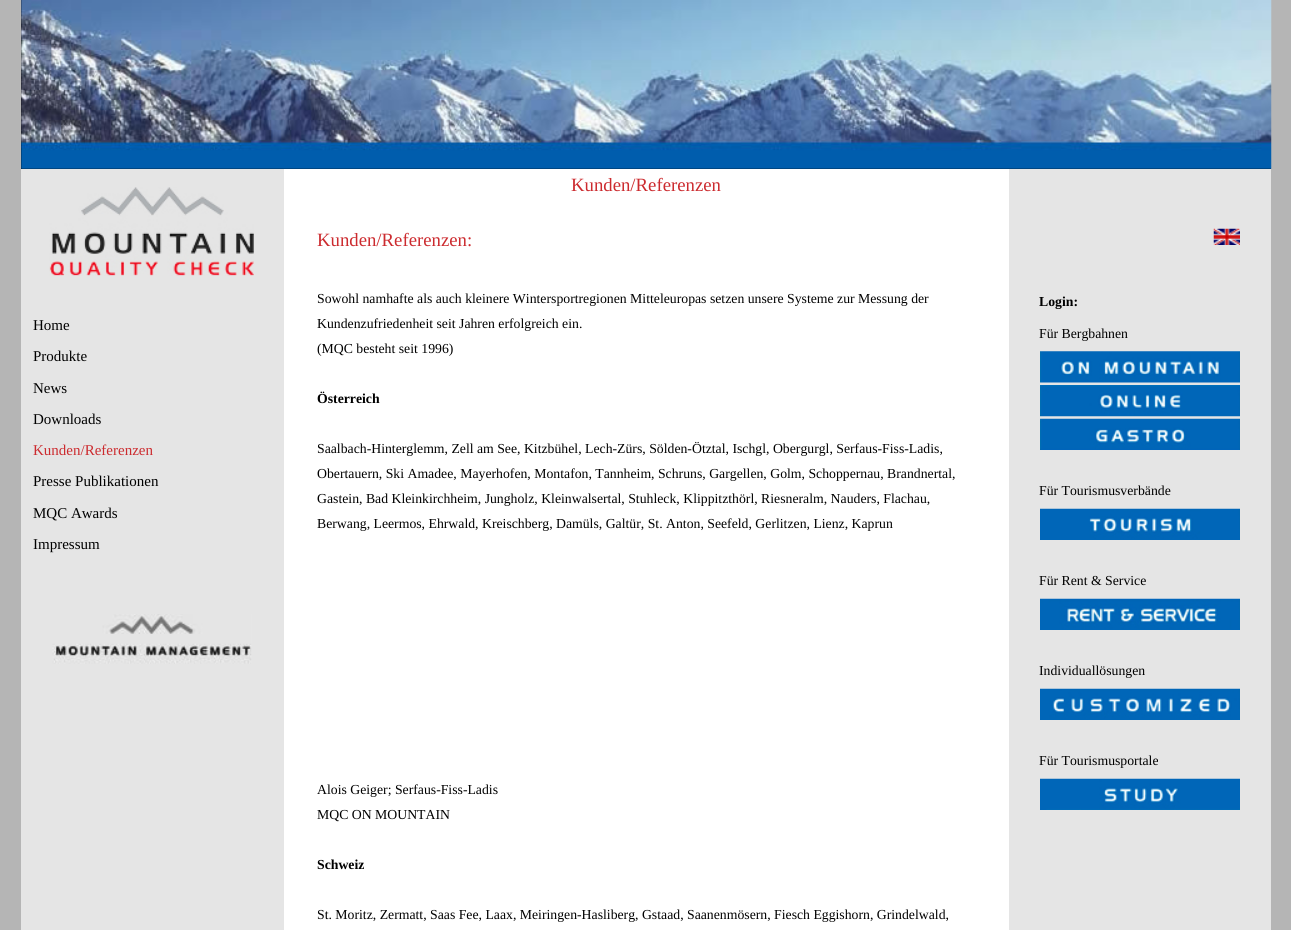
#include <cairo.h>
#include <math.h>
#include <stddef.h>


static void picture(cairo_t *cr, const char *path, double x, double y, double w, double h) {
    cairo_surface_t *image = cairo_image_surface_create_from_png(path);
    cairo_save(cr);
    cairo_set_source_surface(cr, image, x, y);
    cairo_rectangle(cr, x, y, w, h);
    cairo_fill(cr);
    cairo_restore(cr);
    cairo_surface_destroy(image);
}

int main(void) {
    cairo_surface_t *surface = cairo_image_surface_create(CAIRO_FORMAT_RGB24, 1291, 930);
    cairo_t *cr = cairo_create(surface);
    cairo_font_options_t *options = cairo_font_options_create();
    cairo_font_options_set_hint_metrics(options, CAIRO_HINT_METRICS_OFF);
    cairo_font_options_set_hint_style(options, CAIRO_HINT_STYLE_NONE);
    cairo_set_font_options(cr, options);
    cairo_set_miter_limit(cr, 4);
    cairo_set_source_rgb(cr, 0.71, 0.71, 0.71);
    cairo_paint(cr);
    cairo_set_source_rgb(cr, 1, 1, 1);
    cairo_rectangle(cr, 284, 169, 725, 761);
    cairo_fill(cr);
    cairo_set_source_rgb(cr, 0, 0, 0);
    cairo_rectangle(cr, 21, 0, 1250, 169);
    cairo_fill(cr);
    picture(cr, "img1.png", 21, 0, 1251, 169);
    cairo_set_source_rgb(cr, 0.898, 0.898, 0.898);
    cairo_rectangle(cr, 21, 169, 263, 761);
    cairo_fill(cr);
    picture(cr, "img2.png", 49, 187, 205, 89);
    cairo_select_font_face(cr, "Liberation Serif", CAIRO_FONT_SLANT_NORMAL, CAIRO_FONT_WEIGHT_NORMAL);
    cairo_set_font_size(cr, 15);
    cairo_set_source_rgb(cr, 0, 0, 0);
    cairo_move_to(cr, 33, 330);
    cairo_show_text(cr, "Home");
    cairo_move_to(cr, 33, 361);
    cairo_show_text(cr, "Produkte");
    cairo_move_to(cr, 33, 393);
    cairo_show_text(cr, "News");
    cairo_move_to(cr, 33, 424);
    cairo_show_text(cr, "Downloads");
    cairo_set_source_rgb(cr, 0.8, 0.169, 0.184);
    cairo_move_to(cr, 33, 455);
    cairo_show_text(cr, "Kunden/Referenzen");
    cairo_set_source_rgb(cr, 0, 0, 0);
    cairo_move_to(cr, 33, 486);
    cairo_show_text(cr, "Presse Publikationen");
    cairo_move_to(cr, 33, 518);
    cairo_show_text(cr, "MQC Awards");
    cairo_move_to(cr, 33, 549);
    cairo_show_text(cr, "Impressum");
    picture(cr, "img3.png", 52, 614, 200, 50);
    cairo_set_font_size(cr, 18.75);
    cairo_set_source_rgb(cr, 0.8, 0.169, 0.184);
    cairo_move_to(cr, 571, 191);
    cairo_show_text(cr, "Kunden/Referenzen");
    cairo_move_to(cr, 317, 246);
    cairo_show_text(cr, "Kunden/Referenzen:");
    cairo_set_font_size(cr, 13.75);
    cairo_set_source_rgb(cr, 0, 0, 0);
    cairo_move_to(cr, 317, 303);
    cairo_show_text(cr, "Sowohl namhafte als auch kleinere Wintersportregionen Mitteleuropas setzen unsere Systeme zur Messung der");
    cairo_move_to(cr, 317, 328);
    cairo_show_text(cr, "Kundenzufriedenheit seit Jahren erfolgreich ein.");
    cairo_move_to(cr, 317, 353);
    cairo_show_text(cr, "(MQC besteht seit 1996)");
    cairo_select_font_face(cr, "Liberation Serif", CAIRO_FONT_SLANT_NORMAL, CAIRO_FONT_WEIGHT_BOLD);
    cairo_move_to(cr, 317, 403);
    cairo_show_text(cr, "Österreich");
    cairo_select_font_face(cr, "Liberation Serif", CAIRO_FONT_SLANT_NORMAL, CAIRO_FONT_WEIGHT_NORMAL);
    cairo_move_to(cr, 317, 453);
    cairo_show_text(cr, "Saalbach-Hinterglemm, Zell am See, Kitzbühel, Lech-Zürs, Sölden-Ötztal, Ischgl, Obergurgl, Serfaus-Fiss-Ladis,");
    cairo_move_to(cr, 317, 478);
    cairo_show_text(cr, "Obertauern, Ski Amadee, Mayerhofen, Montafon, Tannheim, Schruns, Gargellen, Golm, Schoppernau, Brandnertal,");
    cairo_move_to(cr, 317, 503);
    cairo_show_text(cr, "Gastein, Bad Kleinkirchheim, Jungholz, Kleinwalsertal, Stuhleck, Klippitzthörl, Riesneralm, Nauders, Flachau,");
    cairo_move_to(cr, 317, 528);
    cairo_show_text(cr, "Berwang, Leermos, Ehrwald, Kreischberg, Damüls, Galtür, St. Anton, Seefeld, Gerlitzen, Lienz, Kaprun");
    cairo_move_to(cr, 317, 794);
    cairo_show_text(cr, "Alois Geiger; Serfaus-Fiss-Ladis");
    cairo_move_to(cr, 317, 819);
    cairo_show_text(cr, "MQC ON MOUNTAIN");
    cairo_select_font_face(cr, "Liberation Serif", CAIRO_FONT_SLANT_NORMAL, CAIRO_FONT_WEIGHT_BOLD);
    cairo_move_to(cr, 317, 869);
    cairo_show_text(cr, "Schweiz");
    cairo_select_font_face(cr, "Liberation Serif", CAIRO_FONT_SLANT_NORMAL, CAIRO_FONT_WEIGHT_NORMAL);
    cairo_move_to(cr, 317, 919);
    cairo_show_text(cr, "St. Moritz, Zermatt, Saas Fee, Laax, Meiringen-Hasliberg, Gstaad, Saanenmösern, Fiesch Eggishorn, Grindelwald,");
    cairo_set_source_rgb(cr, 0.898, 0.898, 0.898);
    cairo_rectangle(cr, 1009, 169, 262, 761);
    cairo_fill(cr);
    picture(cr, "img4.png", 1213, 228, 27, 17);
    cairo_select_font_face(cr, "Liberation Serif", CAIRO_FONT_SLANT_NORMAL, CAIRO_FONT_WEIGHT_BOLD);
    cairo_set_source_rgb(cr, 0, 0, 0);
    cairo_move_to(cr, 1039, 306);
    cairo_show_text(cr, "Login:");
    cairo_select_font_face(cr, "Liberation Serif", CAIRO_FONT_SLANT_NORMAL, CAIRO_FONT_WEIGHT_NORMAL);
    cairo_move_to(cr, 1039, 338);
    cairo_show_text(cr, "Für Bergbahnen");
    picture(cr, "img5.png", 1040, 351, 200, 32);
    picture(cr, "img6.png", 1040, 385, 200, 32);
    picture(cr, "img7.png", 1040, 418, 200, 32);
    cairo_move_to(cr, 1039, 495);
    cairo_show_text(cr, "Für Tourismusverbände");
    picture(cr, "img8.png", 1040, 508, 200, 32);
    cairo_move_to(cr, 1039, 585);
    cairo_show_text(cr, "Für Rent & Service");
    picture(cr, "img9.png", 1040, 598, 200, 32);
    cairo_move_to(cr, 1039, 675);
    cairo_show_text(cr, "Individuallösungen");
    picture(cr, "img10.png", 1040, 688, 200, 32);
    cairo_move_to(cr, 1039, 765);
    cairo_show_text(cr, "Für Tourismusportale");
    picture(cr, "img11.png", 1040, 778, 200, 32);
    cairo_surface_write_to_png(surface, "page.png");
    cairo_font_options_destroy(options);
    cairo_destroy(cr);
    cairo_surface_destroy(surface);
    return 0;
}
